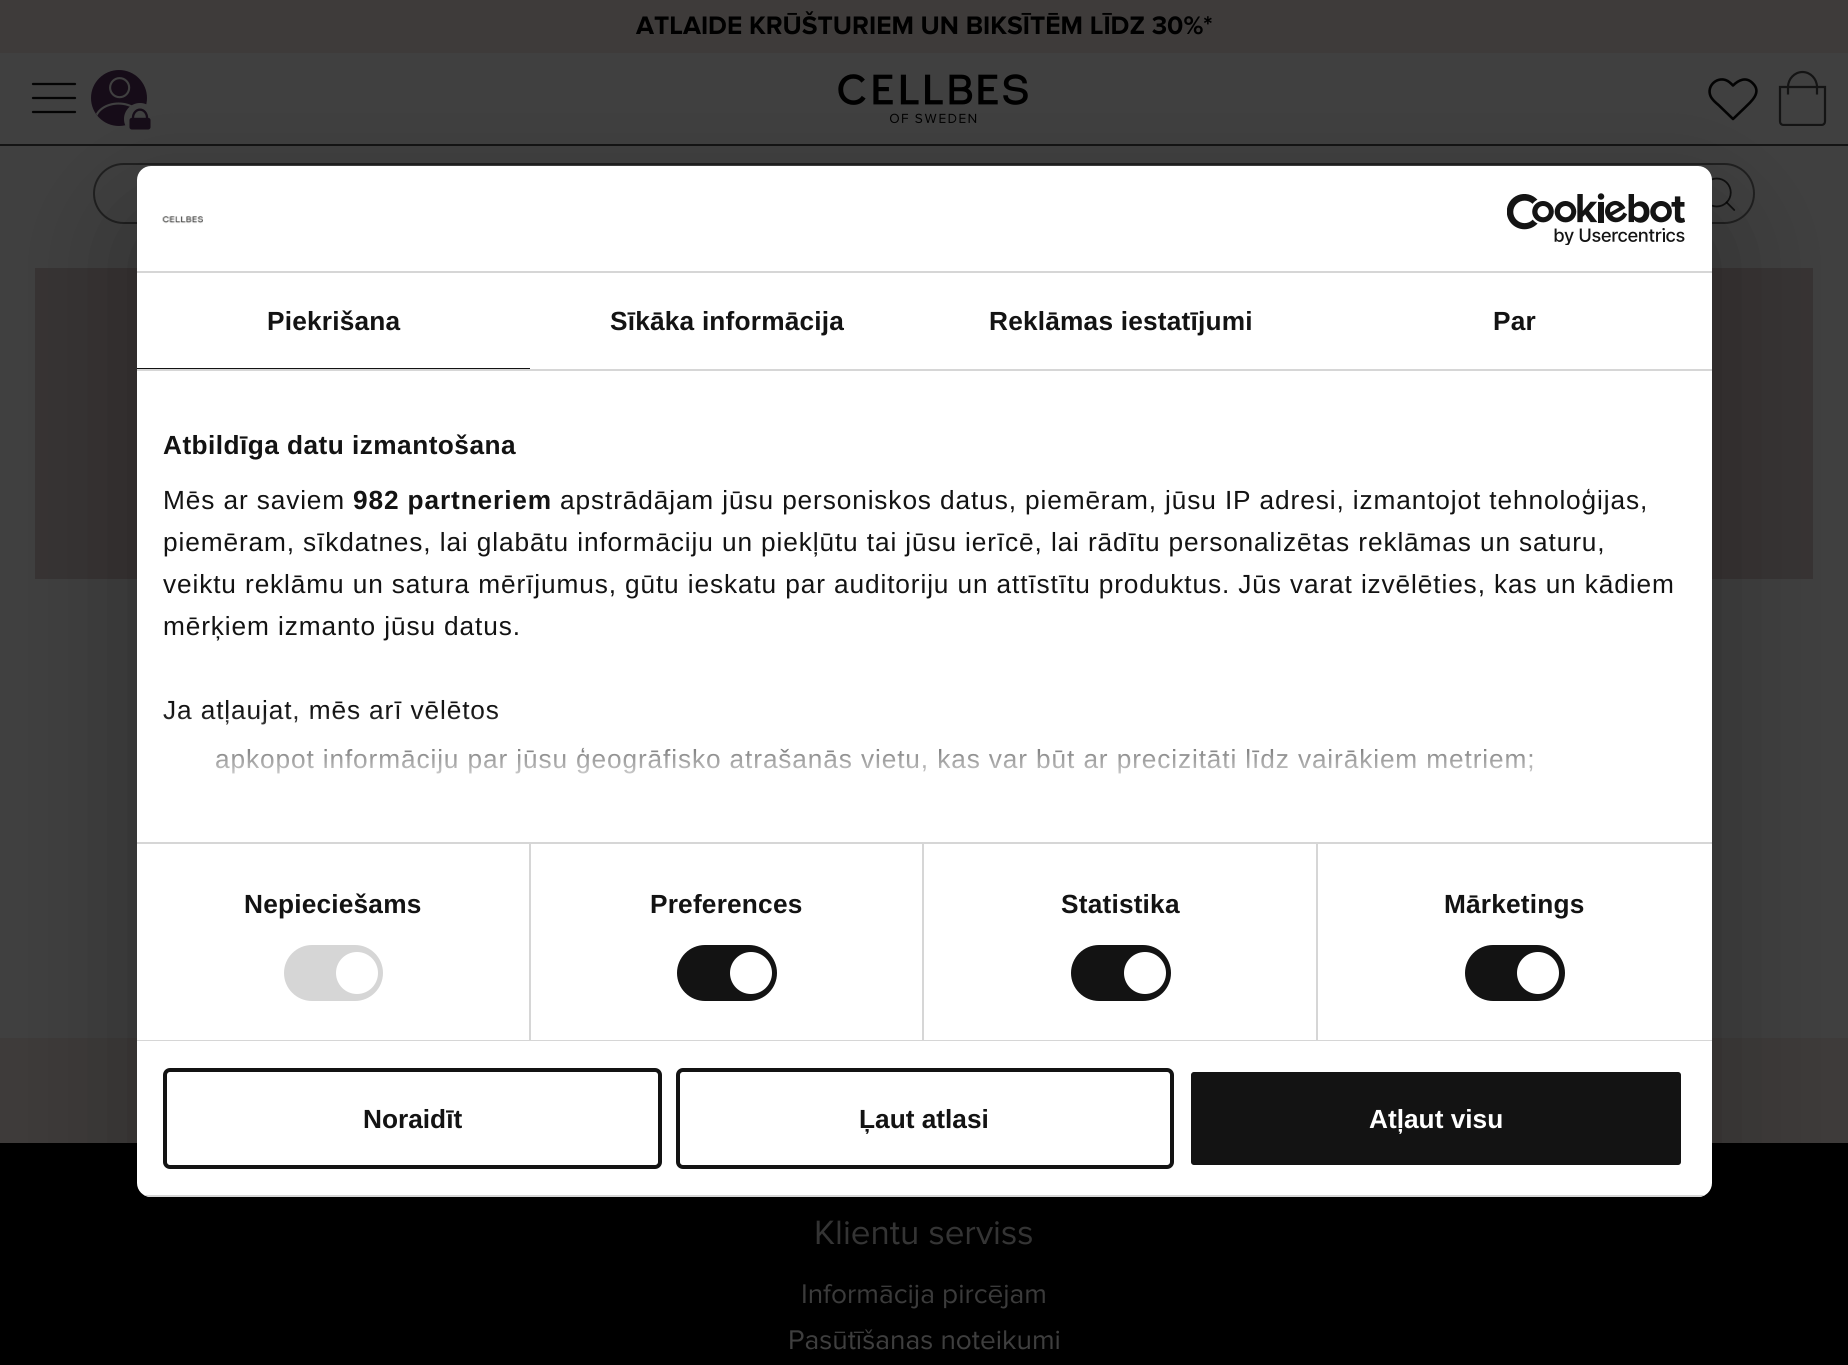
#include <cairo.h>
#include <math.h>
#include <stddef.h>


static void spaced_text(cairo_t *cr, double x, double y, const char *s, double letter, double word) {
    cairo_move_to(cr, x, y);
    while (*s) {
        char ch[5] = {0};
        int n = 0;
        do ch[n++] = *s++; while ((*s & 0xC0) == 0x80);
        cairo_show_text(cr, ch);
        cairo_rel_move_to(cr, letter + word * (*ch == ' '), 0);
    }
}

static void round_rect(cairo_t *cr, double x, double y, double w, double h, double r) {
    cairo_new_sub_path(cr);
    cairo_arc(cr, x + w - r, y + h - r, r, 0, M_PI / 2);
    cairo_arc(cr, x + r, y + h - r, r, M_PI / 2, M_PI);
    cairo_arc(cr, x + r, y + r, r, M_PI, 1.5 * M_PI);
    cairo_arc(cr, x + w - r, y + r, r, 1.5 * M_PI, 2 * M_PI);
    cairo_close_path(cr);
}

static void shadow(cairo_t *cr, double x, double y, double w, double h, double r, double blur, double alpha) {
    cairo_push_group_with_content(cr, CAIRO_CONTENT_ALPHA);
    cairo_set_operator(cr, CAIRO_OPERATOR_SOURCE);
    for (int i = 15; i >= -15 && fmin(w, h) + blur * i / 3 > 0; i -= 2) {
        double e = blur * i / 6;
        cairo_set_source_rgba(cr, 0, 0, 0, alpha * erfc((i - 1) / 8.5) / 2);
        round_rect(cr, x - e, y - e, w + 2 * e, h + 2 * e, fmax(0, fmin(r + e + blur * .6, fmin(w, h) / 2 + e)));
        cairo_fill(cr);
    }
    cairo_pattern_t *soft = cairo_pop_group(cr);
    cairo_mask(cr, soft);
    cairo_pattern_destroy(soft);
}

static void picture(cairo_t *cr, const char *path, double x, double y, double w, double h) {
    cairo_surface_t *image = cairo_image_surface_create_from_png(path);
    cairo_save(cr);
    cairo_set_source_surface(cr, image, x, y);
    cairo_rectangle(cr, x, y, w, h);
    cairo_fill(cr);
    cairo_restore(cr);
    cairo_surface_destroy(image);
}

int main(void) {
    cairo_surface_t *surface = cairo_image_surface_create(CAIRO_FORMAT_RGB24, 1848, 1365);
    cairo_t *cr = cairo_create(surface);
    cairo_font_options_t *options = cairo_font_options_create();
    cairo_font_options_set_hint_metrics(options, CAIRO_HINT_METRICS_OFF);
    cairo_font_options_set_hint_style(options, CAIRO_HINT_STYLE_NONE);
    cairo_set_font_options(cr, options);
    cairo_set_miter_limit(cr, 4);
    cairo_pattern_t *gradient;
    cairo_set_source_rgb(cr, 0.251, 0.251, 0.251);
    cairo_paint(cr);
    cairo_set_source_rgb(cr, 0.243, 0.231, 0.227);
    cairo_rectangle(cr, 0, 0, 1848, 53);
    cairo_fill(cr);
    cairo_select_font_face(cr, "Proxima Nova", CAIRO_FONT_SLANT_NORMAL, CAIRO_FONT_WEIGHT_BOLD);
    cairo_set_font_size(cr, 26.25);
    cairo_set_source_rgb(cr, 0, 0, 0);
    cairo_move_to(cr, 636, 34);
    cairo_show_text(cr, "ATLAIDE KRŪŠTURIEM UN BIKSĪTĒM LĪDZ 30%*");
    cairo_set_source_rgb(cr, 0.082, 0.082, 0.082);
    cairo_rectangle(cr, 0, 144, 1848, 2);
    cairo_fill(cr);
    cairo_new_path(cr);
    cairo_move_to(cr, 33, 98);
    cairo_line_to(cr, 75, 98);
    cairo_move_to(cr, 33, 84);
    cairo_line_to(cr, 75, 84);
    cairo_move_to(cr, 33, 112);
    cairo_line_to(cr, 75, 112);
    cairo_set_source_rgb(cr, 0.016, 0.016, 0.016);
    cairo_set_line_width(cr, 2.3);
    cairo_set_line_cap(cr, CAIRO_LINE_CAP_ROUND);
    cairo_set_line_join(cr, CAIRO_LINE_JOIN_ROUND);
    cairo_stroke(cr);
    cairo_set_source_rgb(cr, 0.086, 0.047, 0.094);
    cairo_arc(cr, 119, 98, 28, 0, 2 * M_PI);
    cairo_fill(cr);
    picture(cr, "img1.png", 96, 77, 37, 39);
    cairo_set_source_rgb(cr, 0.251, 0.251, 0.251);
    cairo_arc(cr, 140, 119, 16, 0, 2 * M_PI);
    cairo_fill(cr);
    picture(cr, "img2.png", 129, 108, 22, 22);
    picture(cr, "img3.png", 838, 74, 190, 50);
    cairo_new_path(cr);
    cairo_move_to(cr, 1752.5, 83);
    cairo_curve_to(cr, 1746, 76.5, 1738.5, 80, 1733, 85.5);
    cairo_curve_to(cr, 1730.5, 83, 1728.5, 81, 1725.5, 80);
    cairo_curve_to(cr, 1716, 77, 1706.5, 86.5, 1710.5, 96);
    cairo_curve_to(cr, 1712, 99.5, 1715.5, 102.5, 1718.5, 105);
    cairo_line_to(cr, 1733, 119);
    cairo_line_to(cr, 1744.5, 108);
    cairo_curve_to(cr, 1751, 101.5, 1762.5, 92.5, 1752.5, 83);
    cairo_close_path(cr);
    cairo_set_source_rgb(cr, 0.012, 0.012, 0.012);
    cairo_set_line_width(cr, 2.6);
    cairo_stroke(cr);
    cairo_save(cr);
    cairo_rectangle(cr, 1775, 70, 56, 56);
    cairo_clip(cr);
    cairo_new_path(cr);
    cairo_move_to(cr, 1780, 87);
    cairo_line_to(cr, 1825, 87);
    cairo_line_to(cr, 1825, 121.5);
    cairo_curve_to(cr, 1825, 123.5, 1823.5, 125, 1821.5, 125);
    cairo_line_to(cr, 1783.5, 125);
    cairo_curve_to(cr, 1781.5, 125, 1780, 123.5, 1780, 121.5);
    cairo_close_path(cr);
    cairo_set_source_rgb(cr, 0.082, 0.082, 0.082);
    cairo_set_line_width(cr, 2.2);
    cairo_set_line_cap(cr, CAIRO_LINE_CAP_BUTT);
    cairo_set_line_join(cr, CAIRO_LINE_JOIN_MITER);
    cairo_stroke(cr);
    cairo_restore(cr);
    cairo_new_path(cr);
    cairo_move_to(cr, 1788, 94.5);
    cairo_line_to(cr, 1788, 87);
    cairo_curve_to(cr, 1788, 79, 1794.5, 72, 1802.5, 72);
    cairo_curve_to(cr, 1810.5, 72, 1817, 79, 1817, 87);
    cairo_line_to(cr, 1817, 94.5);
    cairo_set_source_rgb(cr, 0.082, 0.082, 0.082);
    cairo_set_line_width(cr, 2.2);
    cairo_set_line_cap(cr, CAIRO_LINE_CAP_BUTT);
    cairo_set_line_join(cr, CAIRO_LINE_JOIN_MITER);
    cairo_stroke(cr);
    round_rect(cr, 94, 164, 1660, 59, 29.5);
    cairo_set_source_rgb(cr, 0.125, 0.125, 0.125);
    cairo_set_line_width(cr, 2);
    cairo_stroke(cr);
    picture(cr, "img4.png", 1711, 177, 25, 34);
    cairo_set_source_rgb(cr, 0.22, 0.204, 0.204);
    cairo_rectangle(cr, 35, 268, 1778, 311);
    cairo_fill(cr);
    cairo_set_source_rgb(cr, 0.243, 0.231, 0.227);
    cairo_rectangle(cr, 0, 1038, 1848, 105);
    cairo_fill(cr);
    cairo_set_source_rgb(cr, 0, 0, 0);
    cairo_rectangle(cr, 0, 1143, 1848, 222);
    cairo_fill(cr);
    cairo_select_font_face(cr, "Proxima Nova", CAIRO_FONT_SLANT_NORMAL, CAIRO_FONT_WEIGHT_NORMAL);
    cairo_set_font_size(cr, 35);
    cairo_set_source_rgb(cr, 0.251, 0.251, 0.251);
    cairo_move_to(cr, 814, 1244);
    cairo_show_text(cr, "Klientu serviss");
    cairo_set_font_size(cr, 28);
    cairo_move_to(cr, 801, 1303);
    cairo_show_text(cr, "Informācija pircējam");
    cairo_move_to(cr, 788, 1349);
    cairo_show_text(cr, "Pasūtīšanas noteikumi");
    cairo_set_source_rgb(cr, 0, 0, 0);
    shadow(cr, 137, 222, 1575, 1031, 14, 59.5, 0.3);
    cairo_set_source_rgb(cr, 1, 1, 1);
    round_rect(cr, 137, 166, 1575, 1031, 14);
    cairo_fill(cr);
    cairo_set_source_rgb(cr, 0.839, 0.839, 0.839);
    cairo_rectangle(cr, 137, 271, 1575, 2);
    cairo_fill(cr);
    picture(cr, "img5.png", 162, 216, 41, 8);
    picture(cr, "img6.png", 1507, 193, 178, 52);
    cairo_rectangle(cr, 137, 369, 1575, 2);
    cairo_fill(cr);
    cairo_set_source_rgb(cr, 0.078, 0.078, 0.078);
    cairo_rectangle(cr, 137, 368, 393, 1);
    cairo_fill(cr);
    cairo_select_font_face(cr, "Liberation Sans", CAIRO_FONT_SLANT_NORMAL, CAIRO_FONT_WEIGHT_BOLD);
    cairo_set_font_size(cr, 26.25);
    spaced_text(cr, 267, 330, "Piekrišana", 0.2, 0);
    spaced_text(cr, 610, 330, "Sīkāka informācija", 0.2, 0);
    spaced_text(cr, 989, 330, "Reklāmas iestatījumi", 0.2, 0);
    spaced_text(cr, 1493, 330, "Par", 0.2, 0);
    cairo_set_source_rgb(cr, 0.839, 0.839, 0.839);
    cairo_rectangle(cr, 137, 842, 1575, 2);
    cairo_fill(cr);
    cairo_set_source_rgb(cr, 0.078, 0.078, 0.078);
    spaced_text(cr, 163, 454, "Atbildīga datu izmantošana", 0.45, 0);
    cairo_select_font_face(cr, "Liberation Sans", CAIRO_FONT_SLANT_NORMAL, CAIRO_FONT_WEIGHT_NORMAL);
    spaced_text(cr, 163, 509, "Mēs ar saviem", 0.88, 0);
    cairo_select_font_face(cr, "Liberation Sans", CAIRO_FONT_SLANT_NORMAL, CAIRO_FONT_WEIGHT_BOLD);
    spaced_text(cr, 353, 509, "982 partneriem", 0.88, 0);
    cairo_select_font_face(cr, "Liberation Sans", CAIRO_FONT_SLANT_NORMAL, CAIRO_FONT_WEIGHT_NORMAL);
    spaced_text(cr, 560, 509, "apstrādājam jūsu personiskos datus, piemēram, jūsu IP adresi, izmantojot tehnoloģijas,", 0.88, 0);
    spaced_text(cr, 163, 551, "piemēram, sīkdatnes, lai glabātu informāciju un piekļūtu tai jūsu ierīcē, lai rādītu personalizētas reklāmas un saturu,", 0.88, 0);
    spaced_text(cr, 163, 593, "veiktu reklāmu un satura mērījumus, gūtu ieskatu par auditoriju un attīstītu produktus. Jūs varat izvēlēties, kas un kādiem", 0.88, 0);
    spaced_text(cr, 163, 635, "mērķiem izmanto jūsu datus.", 0.88, 0);
    spaced_text(cr, 163, 719, "Ja atļaujat, mēs arī vēlētos", 0.88, 0);
    spaced_text(cr, 215, 768, "apkopot informāciju par jūsu ģeogrāfisko atrašanās vietu, kas var būt ar precizitāti līdz vairākiem metriem;", 0.88, 0);
    gradient = cairo_pattern_create_linear(913, 842, 913, 711);
    cairo_pattern_add_color_stop_rgba(gradient, 0, 1, 1, 1, 1);
    cairo_pattern_add_color_stop_rgba(gradient, 0.5, 1, 1, 1, 0.8);
    cairo_pattern_add_color_stop_rgba(gradient, 1, 1, 1, 1, 0);
    cairo_set_source(cr, gradient);
    cairo_pattern_destroy(gradient);
    cairo_rectangle(cr, 163, 713, 1370, 61);
    cairo_fill(cr);
    cairo_set_source_rgb(cr, 0.839, 0.839, 0.839);
    cairo_rectangle(cr, 137, 1040, 1575, 1);
    cairo_fill(cr);
    cairo_rectangle(cr, 529, 844, 2, 196);
    cairo_fill(cr);
    cairo_select_font_face(cr, "Liberation Sans", CAIRO_FONT_SLANT_NORMAL, CAIRO_FONT_WEIGHT_BOLD);
    cairo_set_source_rgb(cr, 0.078, 0.078, 0.078);
    spaced_text(cr, 244, 913, "Nepieciešams", 0.2, 0);
    cairo_set_source_rgb(cr, 0.839, 0.839, 0.839);
    round_rect(cr, 284, 945, 99, 56, 28);
    cairo_fill(cr);
    cairo_set_source_rgb(cr, 1, 1, 1);
    cairo_arc(cr, 357, 973, 21, 0, 2 * M_PI);
    cairo_fill(cr);
    cairo_set_source_rgb(cr, 0.839, 0.839, 0.839);
    cairo_rectangle(cr, 922, 844, 2, 196);
    cairo_fill(cr);
    cairo_set_source_rgb(cr, 0.078, 0.078, 0.078);
    spaced_text(cr, 650, 913, "Preferences", 0.2, 0);
    round_rect(cr, 677, 945, 100, 56, 28);
    cairo_fill(cr);
    cairo_set_source_rgb(cr, 1, 1, 1);
    cairo_arc(cr, 751, 973, 21, 0, 2 * M_PI);
    cairo_fill(cr);
    cairo_set_source_rgb(cr, 0.839, 0.839, 0.839);
    cairo_rectangle(cr, 1316, 844, 2, 196);
    cairo_fill(cr);
    cairo_set_source_rgb(cr, 0.078, 0.078, 0.078);
    spaced_text(cr, 1061, 913, "Statistika", 0.2, 0);
    round_rect(cr, 1071, 945, 100, 56, 28);
    cairo_fill(cr);
    cairo_set_source_rgb(cr, 1, 1, 1);
    cairo_arc(cr, 1145, 973, 21, 0, 2 * M_PI);
    cairo_fill(cr);
    cairo_set_source_rgb(cr, 0.078, 0.078, 0.078);
    spaced_text(cr, 1444, 913, "Mārketings", 0.2, 0);
    round_rect(cr, 1465, 945, 100, 56, 28);
    cairo_fill(cr);
    cairo_set_source_rgb(cr, 1, 1, 1);
    cairo_arc(cr, 1538, 973, 21, 0, 2 * M_PI);
    cairo_fill(cr);
    cairo_save(cr);
    round_rect(cr, 137, 166, 1575, 1031, 14);
    cairo_clip(cr);
    cairo_set_source_rgb(cr, 0.839, 0.839, 0.839);
    cairo_rectangle(cr, 137, 1195, 1575, 2);
    cairo_fill(cr);
    cairo_restore(cr);
    round_rect(cr, 165, 1070, 495, 97, 5);
    cairo_set_source_rgb(cr, 0.078, 0.078, 0.078);
    cairo_set_line_width(cr, 4);
    cairo_stroke(cr);
    cairo_move_to(cr, 363, 1128);
    cairo_show_text(cr, "Noraidīt");
    round_rect(cr, 678, 1070, 494, 97, 5);
    cairo_stroke(cr);
    cairo_move_to(cr, 859, 1128);
    cairo_show_text(cr, "Ļaut atlasi");
    round_rect(cr, 1189, 1070, 494, 97, 5);
    cairo_fill_preserve(cr);
    cairo_set_source_rgb(cr, 1, 1, 1);
    cairo_stroke(cr);
    cairo_move_to(cr, 1369, 1128);
    cairo_show_text(cr, "Atļaut visu");
    cairo_surface_write_to_png(surface, "page.png");
    cairo_font_options_destroy(options);
    cairo_destroy(cr);
    cairo_surface_destroy(surface);
    return 0;
}
